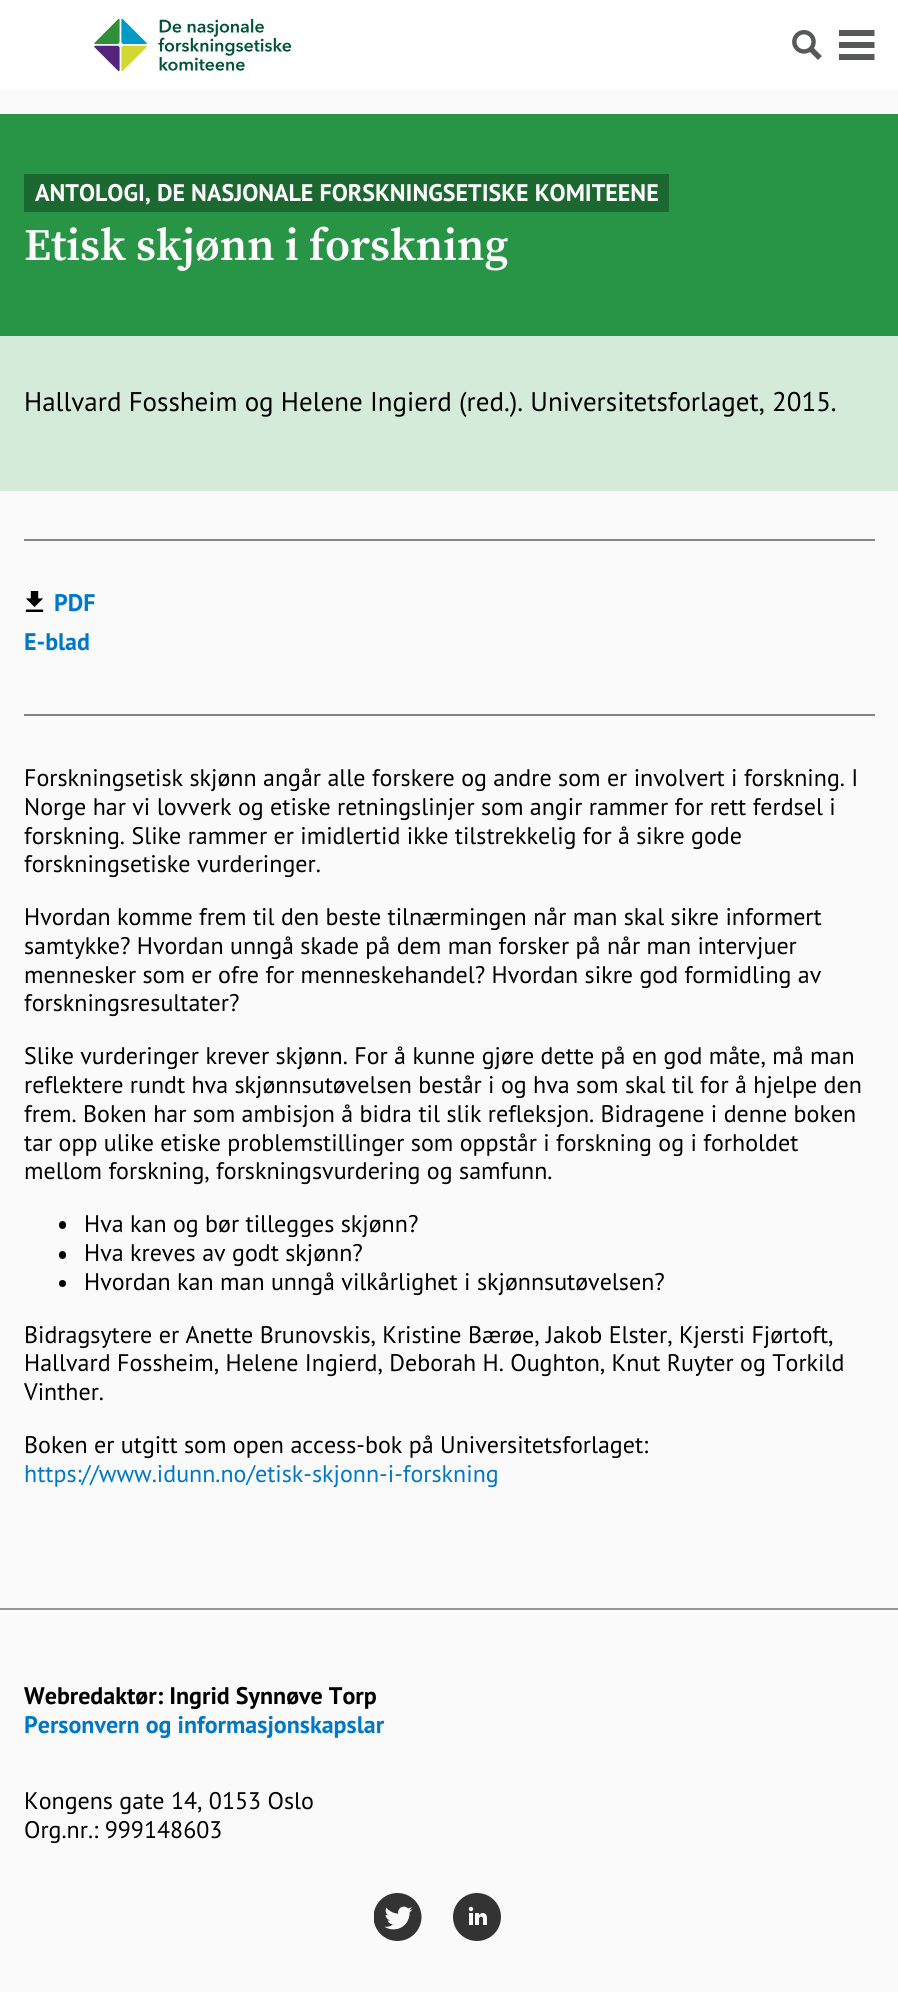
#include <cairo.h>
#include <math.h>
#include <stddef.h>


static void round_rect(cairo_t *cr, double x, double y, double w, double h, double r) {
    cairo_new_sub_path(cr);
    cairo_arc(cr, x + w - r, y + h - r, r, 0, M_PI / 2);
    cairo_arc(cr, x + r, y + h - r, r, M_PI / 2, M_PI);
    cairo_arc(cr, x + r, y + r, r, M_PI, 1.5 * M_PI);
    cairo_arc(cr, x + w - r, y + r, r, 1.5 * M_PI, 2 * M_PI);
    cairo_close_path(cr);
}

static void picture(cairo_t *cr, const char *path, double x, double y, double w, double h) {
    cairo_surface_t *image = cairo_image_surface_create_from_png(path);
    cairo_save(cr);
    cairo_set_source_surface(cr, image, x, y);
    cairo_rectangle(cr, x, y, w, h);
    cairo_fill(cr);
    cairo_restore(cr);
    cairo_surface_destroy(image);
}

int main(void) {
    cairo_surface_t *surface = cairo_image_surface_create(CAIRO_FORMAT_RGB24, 898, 1992);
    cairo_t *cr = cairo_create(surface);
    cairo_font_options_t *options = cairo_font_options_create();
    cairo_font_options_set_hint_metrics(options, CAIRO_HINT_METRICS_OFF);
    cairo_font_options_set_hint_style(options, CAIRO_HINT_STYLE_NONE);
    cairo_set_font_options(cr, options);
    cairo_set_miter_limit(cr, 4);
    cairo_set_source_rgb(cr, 0.98, 0.98, 0.98);
    cairo_paint(cr);
    cairo_set_source_rgb(cr, 1, 1, 1);
    cairo_rectangle(cr, 0, 0, 898, 90);
    cairo_fill(cr);
    picture(cr, "img1.png", 94, 18, 198, 54);
    picture(cr, "img2.png", 792, 30, 30, 30);
    cairo_save(cr);
    cairo_rectangle(cr, 839, 30, 36, 30);
    cairo_clip(cr);
    cairo_set_source_rgb(cr, 0.341, 0.345, 0.353);
    cairo_new_path(cr);
    cairo_move_to(cr, 874.5, 36);
    cairo_line_to(cr, 838.5, 36);
    cairo_line_to(cr, 838.5, 30);
    cairo_line_to(cr, 874.5, 30);
    cairo_close_path(cr);
    cairo_move_to(cr, 874.5, 42);
    cairo_line_to(cr, 838.5, 42);
    cairo_line_to(cr, 838.5, 48);
    cairo_line_to(cr, 874.5, 48);
    cairo_close_path(cr);
    cairo_move_to(cr, 874.5, 54);
    cairo_line_to(cr, 838.5, 54);
    cairo_line_to(cr, 838.5, 60);
    cairo_line_to(cr, 874.5, 60);
    cairo_close_path(cr);
    cairo_fill(cr);
    cairo_restore(cr);
    cairo_set_source_rgb(cr, 0.831, 0.918, 0.855);
    cairo_rectangle(cr, 0, 336, 898, 155);
    cairo_fill(cr);
    cairo_set_source_rgb(cr, 0.157, 0.584, 0.275);
    cairo_rectangle(cr, 0, 114, 898, 222);
    cairo_fill(cr);
    cairo_set_source_rgb(cr, 0.11, 0.408, 0.192);
    cairo_rectangle(cr, 24, 174, 645, 38);
    cairo_fill(cr);
    cairo_select_font_face(cr, "PT Sans", CAIRO_FONT_SLANT_NORMAL, CAIRO_FONT_WEIGHT_BOLD);
    cairo_set_font_size(cr, 24);
    cairo_set_source_rgb(cr, 1, 1, 1);
    cairo_move_to(cr, 35, 201);
    cairo_show_text(cr, "ANTOLOGI, DE NASJONALE FORSKNINGSETISKE KOMITEENE");
    cairo_select_font_face(cr, "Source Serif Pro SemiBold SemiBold", CAIRO_FONT_SLANT_NORMAL, CAIRO_FONT_WEIGHT_NORMAL);
    cairo_set_font_size(cr, 45);
    cairo_move_to(cr, 24, 260);
    cairo_show_text(cr, "Etisk skjønn i forskning");
    cairo_select_font_face(cr, "PT Sans", CAIRO_FONT_SLANT_NORMAL, CAIRO_FONT_WEIGHT_NORMAL);
    cairo_set_font_size(cr, 27);
    cairo_set_source_rgb(cr, 0, 0, 0);
    cairo_move_to(cr, 24, 411);
    cairo_show_text(cr, "Hallvard Fossheim og Helene Ingierd (red.). Universitetsforlaget, 2015.");
    cairo_set_source_rgb(cr, 0.518, 0.518, 0.518);
    cairo_rectangle(cr, 24, 539, 851, 2);
    cairo_fill(cr);
    cairo_rectangle(cr, 24, 714, 851, 2);
    cairo_fill(cr);
    picture(cr, "img3.png", 25, 591, 19, 21);
    cairo_select_font_face(cr, "PT Sans", CAIRO_FONT_SLANT_NORMAL, CAIRO_FONT_WEIGHT_BOLD);
    cairo_set_font_size(cr, 24);
    cairo_set_source_rgb(cr, 0, 0.467, 0.78);
    cairo_move_to(cr, 54, 611);
    cairo_show_text(cr, "PDF");
    cairo_move_to(cr, 24, 650);
    cairo_show_text(cr, "E-blad");
    cairo_select_font_face(cr, "PT Sans", CAIRO_FONT_SLANT_NORMAL, CAIRO_FONT_WEIGHT_NORMAL);
    cairo_set_source_rgb(cr, 0, 0, 0);
    cairo_move_to(cr, 24, 786);
    cairo_show_text(cr, "Forskningsetisk skjønn angår alle forskere og andre som er involvert i forskning. I");
    cairo_move_to(cr, 24, 815);
    cairo_show_text(cr, "Norge har vi lovverk og etiske retningslinjer som angir rammer for rett ferdsel i");
    cairo_move_to(cr, 24, 844);
    cairo_show_text(cr, "forskning. Slike rammer er imidlertid ikke tilstrekkelig for å sikre gode");
    cairo_move_to(cr, 24, 872);
    cairo_show_text(cr, "forskningsetiske vurderinger.");
    cairo_move_to(cr, 24, 925);
    cairo_show_text(cr, "Hvordan komme frem til den beste tilnærmingen når man skal sikre informert");
    cairo_move_to(cr, 24, 954);
    cairo_show_text(cr, "samtykke? Hvordan unngå skade på dem man forsker på når man intervjuer");
    cairo_move_to(cr, 24, 983);
    cairo_show_text(cr, "mennesker som er ofre for menneskehandel? Hvordan sikre god formidling av");
    cairo_move_to(cr, 24, 1011);
    cairo_show_text(cr, "forskningsresultater?");
    cairo_move_to(cr, 24, 1064);
    cairo_show_text(cr, "Slike vurderinger krever skjønn. For å kunne gjøre dette på en god måte, må man");
    cairo_move_to(cr, 24, 1093);
    cairo_show_text(cr, "reflektere rundt hva skjønnsutøvelsen består i og hva som skal til for å hjelpe den");
    cairo_move_to(cr, 24, 1122);
    cairo_show_text(cr, "frem. Boken har som ambisjon å bidra til slik refleksjon. Bidragene i denne boken");
    cairo_move_to(cr, 24, 1151);
    cairo_show_text(cr, "tar opp ulike etiske problemstillinger som oppstår i forskning og i forholdet");
    cairo_move_to(cr, 24, 1179);
    cairo_show_text(cr, "mellom forskning, forskningsvurdering og samfunn.");
    round_rect(cr, 59, 1221, 7, 8, 3.5);
    cairo_fill(cr);
    cairo_move_to(cr, 84, 1232);
    cairo_show_text(cr, "Hva kan og bør tillegges skjønn?");
    round_rect(cr, 59, 1251, 7, 8, 3.5);
    cairo_fill(cr);
    cairo_move_to(cr, 84, 1261);
    cairo_show_text(cr, "Hva kreves av godt skjønn?");
    cairo_new_path(cr);
    cairo_arc(cr, 62.5, 1283.5, 3.5, 0, 2 * M_PI);
    cairo_fill(cr);
    cairo_move_to(cr, 84, 1290);
    cairo_show_text(cr, "Hvordan kan man unngå vilkårlighet i skjønnsutøvelsen?");
    cairo_move_to(cr, 24, 1343);
    cairo_show_text(cr, "Bidragsytere er Anette Brunovskis, Kristine Bærøe, Jakob Elster, Kjersti Fjørtoft,");
    cairo_move_to(cr, 24, 1371);
    cairo_show_text(cr, "Hallvard Fossheim, Helene Ingierd, Deborah H. Oughton, Knut Ruyter og Torkild");
    cairo_move_to(cr, 24, 1400);
    cairo_show_text(cr, "Vinther.");
    cairo_move_to(cr, 24, 1453);
    cairo_show_text(cr, "Boken er utgitt som open access-bok på Universitetsforlaget:");
    cairo_set_source_rgb(cr, 0, 0.467, 0.78);
    cairo_move_to(cr, 24, 1482);
    cairo_show_text(cr, "https://www.idunn.no/etisk-skjonn-i-forskning");
    cairo_set_source_rgb(cr, 0.584, 0.596, 0.604);
    cairo_rectangle(cr, 0, 1608, 898, 2);
    cairo_fill(cr);
    cairo_select_font_face(cr, "PT Sans", CAIRO_FONT_SLANT_NORMAL, CAIRO_FONT_WEIGHT_BOLD);
    cairo_set_source_rgb(cr, 0, 0, 0);
    cairo_move_to(cr, 24, 1704);
    cairo_show_text(cr, "Webredaktør: Ingrid Synnøve Torp");
    cairo_set_source_rgb(cr, 0, 0.467, 0.78);
    cairo_move_to(cr, 24, 1733);
    cairo_show_text(cr, "Personvern og informasjonskapslar");
    cairo_select_font_face(cr, "PT Sans", CAIRO_FONT_SLANT_NORMAL, CAIRO_FONT_WEIGHT_NORMAL);
    cairo_set_source_rgb(cr, 0, 0, 0);
    cairo_move_to(cr, 24, 1809);
    cairo_show_text(cr, "Kongens gate 14, 0153 Oslo");
    cairo_move_to(cr, 24, 1838);
    cairo_show_text(cr, "Org.nr.: 999148603");
    picture(cr, "img4.png", 374, 1893, 48, 48);
    picture(cr, "img5.png", 453, 1893, 48, 48);
    cairo_surface_write_to_png(surface, "page.png");
    cairo_font_options_destroy(options);
    cairo_destroy(cr);
    cairo_surface_destroy(surface);
    return 0;
}
